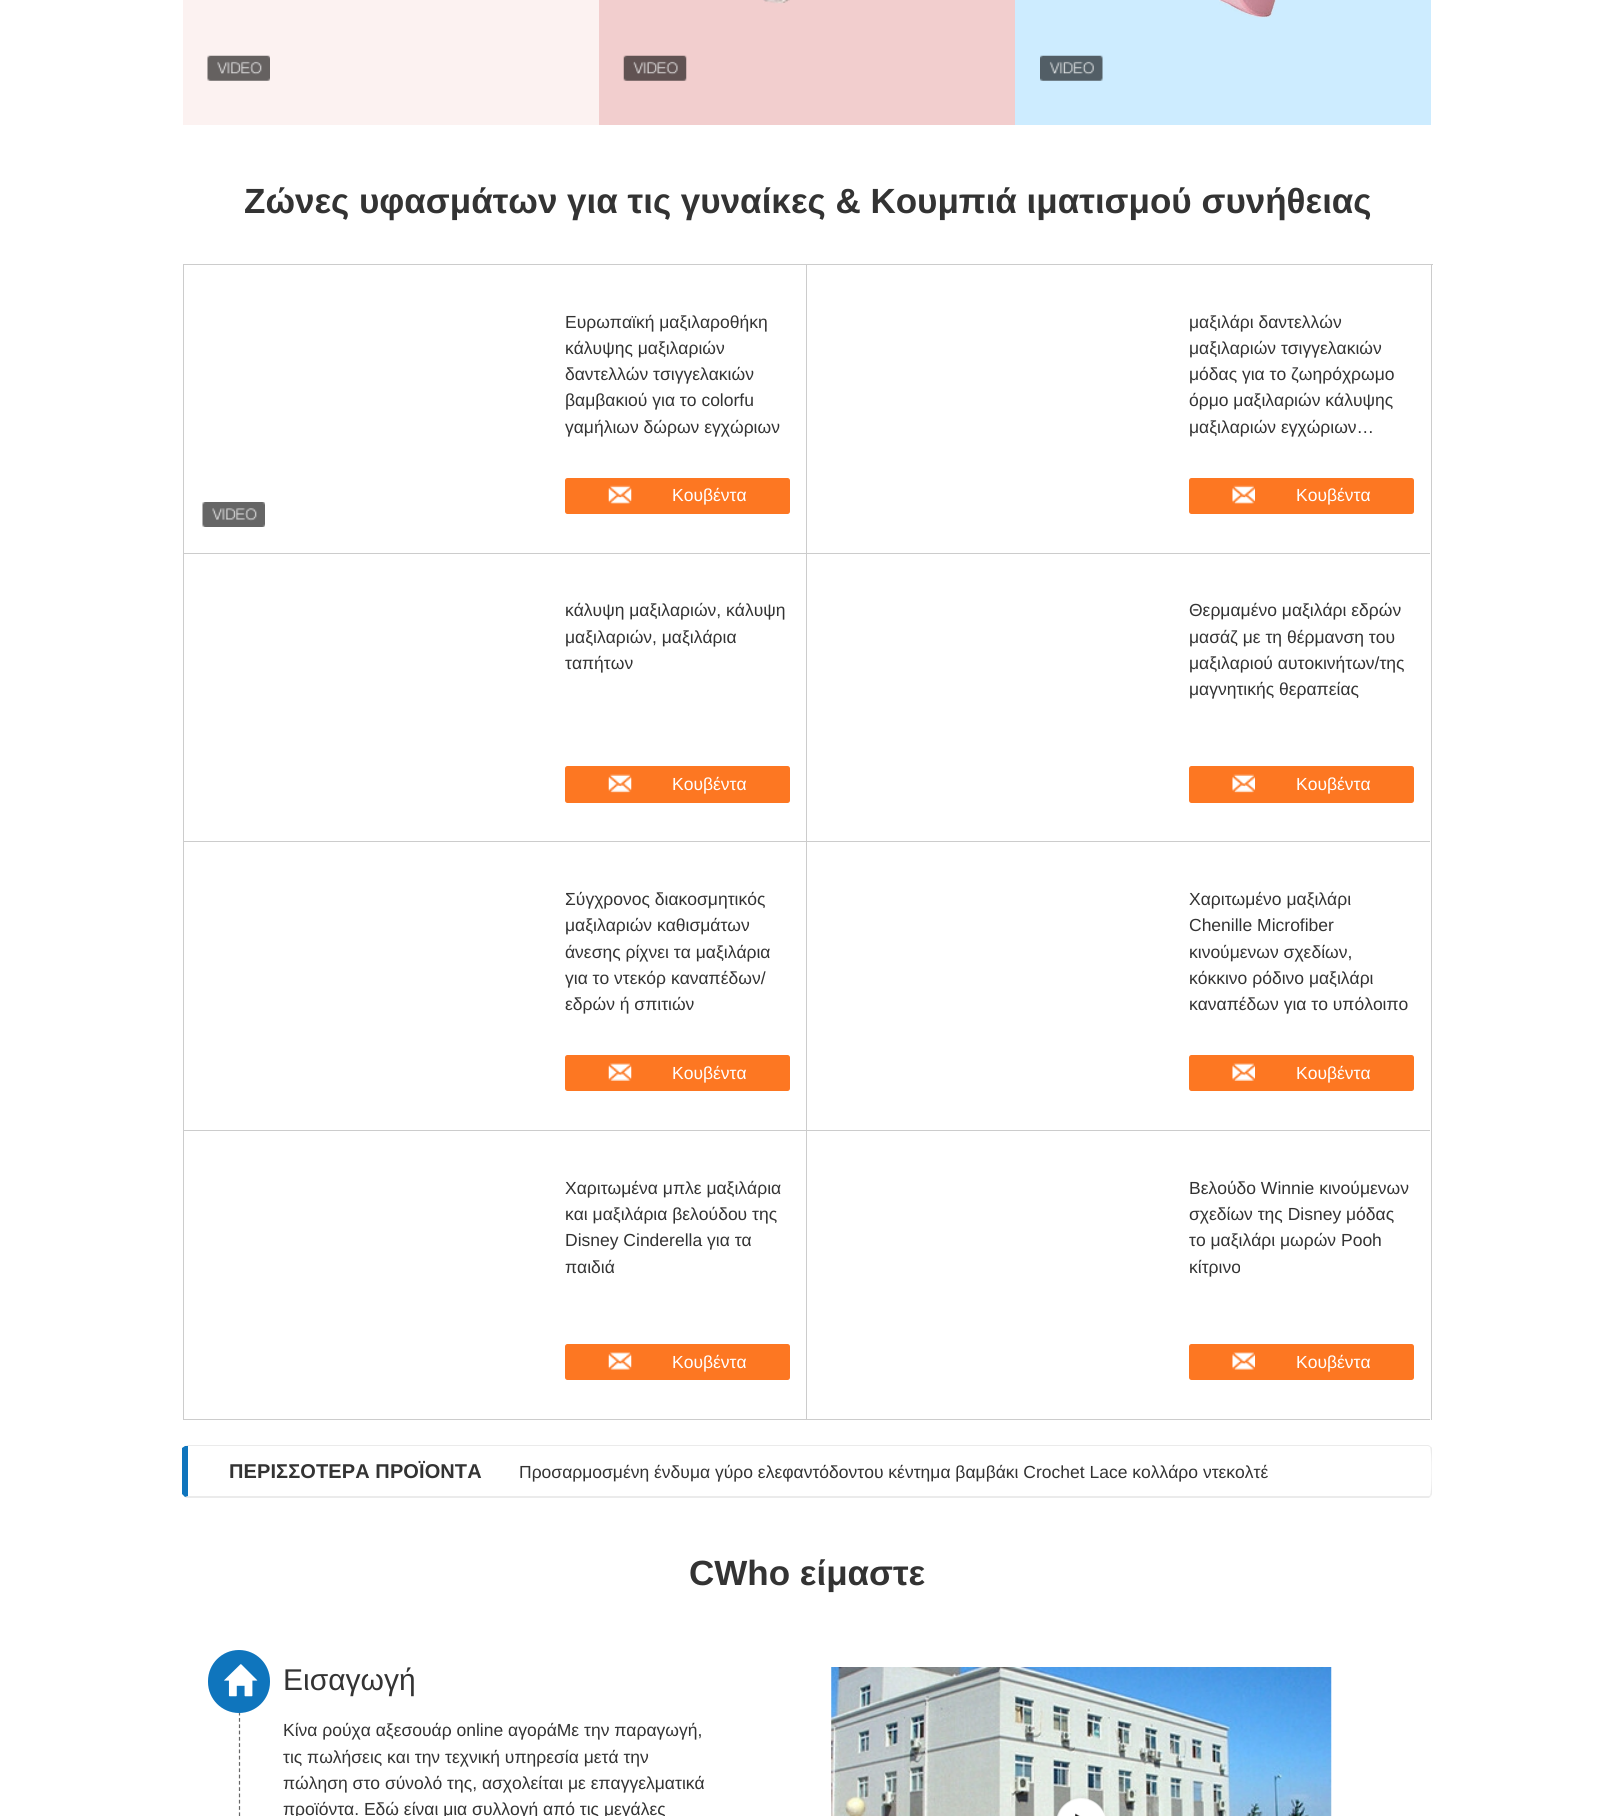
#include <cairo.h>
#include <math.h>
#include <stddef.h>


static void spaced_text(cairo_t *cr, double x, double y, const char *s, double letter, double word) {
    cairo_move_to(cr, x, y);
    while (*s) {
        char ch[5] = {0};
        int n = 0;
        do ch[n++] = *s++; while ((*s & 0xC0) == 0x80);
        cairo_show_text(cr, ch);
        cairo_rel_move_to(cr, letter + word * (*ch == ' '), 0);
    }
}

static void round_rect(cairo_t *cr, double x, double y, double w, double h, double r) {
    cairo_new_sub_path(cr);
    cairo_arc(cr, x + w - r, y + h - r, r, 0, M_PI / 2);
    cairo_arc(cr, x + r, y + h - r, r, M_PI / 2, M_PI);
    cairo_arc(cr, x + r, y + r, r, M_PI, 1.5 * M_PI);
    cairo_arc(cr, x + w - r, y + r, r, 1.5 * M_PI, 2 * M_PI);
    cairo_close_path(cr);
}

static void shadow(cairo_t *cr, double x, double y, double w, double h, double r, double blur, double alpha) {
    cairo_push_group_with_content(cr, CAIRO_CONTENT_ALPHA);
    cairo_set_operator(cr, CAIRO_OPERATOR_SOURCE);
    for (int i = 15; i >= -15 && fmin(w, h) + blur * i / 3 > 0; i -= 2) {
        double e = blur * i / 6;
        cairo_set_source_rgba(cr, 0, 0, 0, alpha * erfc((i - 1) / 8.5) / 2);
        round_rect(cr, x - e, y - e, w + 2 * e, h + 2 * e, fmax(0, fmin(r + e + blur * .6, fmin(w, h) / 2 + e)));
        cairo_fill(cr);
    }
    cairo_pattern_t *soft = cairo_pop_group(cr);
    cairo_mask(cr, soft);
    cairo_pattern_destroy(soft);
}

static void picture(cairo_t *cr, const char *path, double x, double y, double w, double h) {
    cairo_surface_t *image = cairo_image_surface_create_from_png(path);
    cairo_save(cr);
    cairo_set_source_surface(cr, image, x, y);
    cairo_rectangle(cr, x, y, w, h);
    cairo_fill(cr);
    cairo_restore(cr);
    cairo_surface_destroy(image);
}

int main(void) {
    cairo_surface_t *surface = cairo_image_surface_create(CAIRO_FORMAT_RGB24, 1614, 1816);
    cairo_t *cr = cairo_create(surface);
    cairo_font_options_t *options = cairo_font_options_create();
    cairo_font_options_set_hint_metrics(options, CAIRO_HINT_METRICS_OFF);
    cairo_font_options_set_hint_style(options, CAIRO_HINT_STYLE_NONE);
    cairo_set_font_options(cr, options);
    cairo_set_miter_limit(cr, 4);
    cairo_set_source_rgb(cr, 1, 1, 1);
    cairo_paint(cr);
    cairo_set_source_rgb(cr, 0.988, 0.949, 0.945);
    cairo_rectangle(cr, 183, 0, 416, 125);
    cairo_fill(cr);
    picture(cr, "img1.png", 207, 55, 63, 26);
    cairo_set_source_rgb(cr, 0.949, 0.808, 0.808);
    cairo_rectangle(cr, 599, 0, 416, 125);
    cairo_fill(cr);
    picture(cr, "img2.png", 763, 0, 27, 4);
    picture(cr, "img3.png", 623, 55, 64, 26);
    cairo_set_source_rgb(cr, 0.804, 0.925, 1);
    cairo_rectangle(cr, 1015, 0, 416, 125);
    cairo_fill(cr);
    picture(cr, "img4.png", 1219, 0, 57, 18);
    picture(cr, "img5.png", 1040, 55, 63, 26);
    cairo_select_font_face(cr, "Liberation Sans", CAIRO_FONT_SLANT_NORMAL, CAIRO_FONT_WEIGHT_BOLD);
    cairo_set_font_size(cr, 35);
    cairo_set_source_rgb(cr, 0.2, 0.2, 0.2);
    cairo_move_to(cr, 244, 213);
    cairo_show_text(cr, "Ζώνες υφασμάτων για τις γυναίκες & Κουμπιά ιματισμού συνήθειας");
    cairo_set_source_rgb(cr, 0.8, 0.8, 0.8);
    cairo_rectangle(cr, 183, 264, 1250, 1);
    cairo_fill(cr);
    cairo_rectangle(cr, 1431, 264, 1, 1156);
    cairo_fill(cr);
    cairo_rectangle(cr, 183, 264, 1, 1156);
    cairo_fill(cr);
    cairo_rectangle(cr, 184, 553, 1246, 1);
    cairo_fill(cr);
    cairo_select_font_face(cr, "Liberation Sans", CAIRO_FONT_SLANT_NORMAL, CAIRO_FONT_WEIGHT_NORMAL);
    cairo_set_font_size(cr, 17.5);
    cairo_set_source_rgb(cr, 0.2, 0.2, 0.2);
    cairo_move_to(cr, 565, 328);
    cairo_show_text(cr, "Ευρωπαϊκή μαξιλαροθήκη");
    cairo_move_to(cr, 565, 354);
    cairo_show_text(cr, "κάλυψης μαξιλαριών");
    cairo_move_to(cr, 565, 380);
    cairo_show_text(cr, "δαντελλών τσιγγελακιών");
    cairo_move_to(cr, 565, 406);
    cairo_show_text(cr, "βαμβακιού για το colorfu");
    cairo_move_to(cr, 565, 433);
    cairo_show_text(cr, "γαμήλιων δώρων εγχώριων");
    cairo_set_source_rgb(cr, 0.992, 0.467, 0.133);
    round_rect(cr, 565, 478, 225, 36, 2.5);
    cairo_fill(cr);
    picture(cr, "img6.png", 608, 485, 24, 19);
    cairo_set_source_rgb(cr, 1, 1, 1);
    cairo_move_to(cr, 672, 501);
    cairo_show_text(cr, "Κουβέντα");
    picture(cr, "img7.png", 202, 502, 63, 25);
    cairo_set_source_rgb(cr, 0.8, 0.8, 0.8);
    cairo_rectangle(cr, 806, 265, 1, 289);
    cairo_fill(cr);
    cairo_set_source_rgb(cr, 0.2, 0.2, 0.2);
    cairo_move_to(cr, 1189, 328);
    cairo_show_text(cr, "μαξιλάρι δαντελλών");
    cairo_move_to(cr, 1189, 354);
    cairo_show_text(cr, "μαξιλαριών τσιγγελακιών");
    cairo_move_to(cr, 1189, 380);
    cairo_show_text(cr, "μόδας για το ζωηρόχρωμο");
    cairo_move_to(cr, 1189, 406);
    cairo_show_text(cr, "όρμο μαξιλαριών κάλυψης");
    cairo_move_to(cr, 1189, 433);
    cairo_show_text(cr, "μαξιλαριών εγχώριων…");
    cairo_set_source_rgb(cr, 0.992, 0.467, 0.133);
    round_rect(cr, 1189, 478, 225, 36, 2.5);
    cairo_fill(cr);
    picture(cr, "img8.png", 1232, 485, 23, 19);
    cairo_set_source_rgb(cr, 1, 1, 1);
    cairo_move_to(cr, 1296, 501);
    cairo_show_text(cr, "Κουβέντα");
    cairo_set_source_rgb(cr, 0.8, 0.8, 0.8);
    cairo_rectangle(cr, 184, 841, 1246, 1);
    cairo_fill(cr);
    cairo_set_source_rgb(cr, 0.2, 0.2, 0.2);
    cairo_move_to(cr, 565, 616);
    cairo_show_text(cr, "κάλυψη μαξιλαριών, κάλυψη");
    cairo_move_to(cr, 565, 643);
    cairo_show_text(cr, "μαξιλαριών, μαξιλάρια");
    cairo_move_to(cr, 565, 669);
    cairo_show_text(cr, "ταπήτων");
    cairo_set_source_rgb(cr, 0.992, 0.467, 0.133);
    round_rect(cr, 565, 766, 225, 37, 2.5);
    cairo_fill(cr);
    picture(cr, "img9.png", 608, 774, 24, 19);
    cairo_set_source_rgb(cr, 1, 1, 1);
    cairo_move_to(cr, 672, 790);
    cairo_show_text(cr, "Κουβέντα");
    cairo_set_source_rgb(cr, 0.8, 0.8, 0.8);
    cairo_rectangle(cr, 806, 554, 1, 289);
    cairo_fill(cr);
    cairo_set_source_rgb(cr, 0.2, 0.2, 0.2);
    cairo_move_to(cr, 1189, 616);
    cairo_show_text(cr, "Θερμαμένο μαξιλάρι εδρών");
    cairo_move_to(cr, 1189, 643);
    cairo_show_text(cr, "μασάζ με τη θέρμανση του");
    cairo_move_to(cr, 1189, 669);
    cairo_show_text(cr, "μαξιλαριού αυτοκινήτων/της");
    cairo_move_to(cr, 1189, 695);
    cairo_show_text(cr, "μαγνητικής θεραπείας");
    cairo_set_source_rgb(cr, 0.992, 0.467, 0.133);
    round_rect(cr, 1189, 766, 225, 37, 2.5);
    cairo_fill(cr);
    picture(cr, "img10.png", 1232, 774, 23, 19);
    cairo_set_source_rgb(cr, 1, 1, 1);
    cairo_move_to(cr, 1296, 790);
    cairo_show_text(cr, "Κουβέντα");
    cairo_set_source_rgb(cr, 0.8, 0.8, 0.8);
    cairo_rectangle(cr, 184, 1130, 1246, 1);
    cairo_fill(cr);
    cairo_set_source_rgb(cr, 0.2, 0.2, 0.2);
    cairo_move_to(cr, 565, 905);
    cairo_show_text(cr, "Σύγχρονος διακοσμητικός");
    cairo_move_to(cr, 565, 931);
    cairo_show_text(cr, "μαξιλαριών καθισμάτων");
    cairo_move_to(cr, 565, 958);
    cairo_show_text(cr, "άνεσης ρίχνει τα μαξιλάρια");
    cairo_move_to(cr, 565, 984);
    cairo_show_text(cr, "για το ντεκόρ καναπέδων/");
    cairo_move_to(cr, 565, 1010);
    cairo_show_text(cr, "εδρών ή σπιτιών");
    cairo_set_source_rgb(cr, 0.992, 0.467, 0.133);
    round_rect(cr, 565, 1055, 225, 36, 2.5);
    cairo_fill(cr);
    picture(cr, "img11.png", 608, 1063, 24, 18);
    cairo_set_source_rgb(cr, 1, 1, 1);
    cairo_move_to(cr, 672, 1079);
    cairo_show_text(cr, "Κουβέντα");
    cairo_set_source_rgb(cr, 0.8, 0.8, 0.8);
    cairo_rectangle(cr, 806, 843, 1, 288);
    cairo_fill(cr);
    cairo_set_source_rgb(cr, 0.2, 0.2, 0.2);
    cairo_move_to(cr, 1189, 905);
    cairo_show_text(cr, "Χαριτωμένο μαξιλάρι");
    cairo_move_to(cr, 1189, 931);
    cairo_show_text(cr, "Chenille Microfiber");
    cairo_move_to(cr, 1189, 958);
    cairo_show_text(cr, "κινούμενων σχεδίων,");
    cairo_move_to(cr, 1189, 984);
    cairo_show_text(cr, "κόκκινο ρόδινο μαξιλάρι");
    cairo_move_to(cr, 1189, 1010);
    cairo_show_text(cr, "καναπέδων για το υπόλοιπο");
    cairo_set_source_rgb(cr, 0.992, 0.467, 0.133);
    round_rect(cr, 1189, 1055, 225, 36, 2.5);
    cairo_fill(cr);
    picture(cr, "img12.png", 1232, 1063, 23, 18);
    cairo_set_source_rgb(cr, 1, 1, 1);
    cairo_move_to(cr, 1296, 1079);
    cairo_show_text(cr, "Κουβέντα");
    cairo_set_source_rgb(cr, 0.8, 0.8, 0.8);
    cairo_rectangle(cr, 184, 1419, 1246, 1);
    cairo_fill(cr);
    cairo_set_source_rgb(cr, 0.2, 0.2, 0.2);
    cairo_move_to(cr, 565, 1194);
    cairo_show_text(cr, "Χαριτωμένα μπλε μαξιλάρια");
    cairo_move_to(cr, 565, 1220);
    cairo_show_text(cr, "και μαξιλάρια βελούδου της");
    cairo_move_to(cr, 565, 1246);
    cairo_show_text(cr, "Disney Cinderella για τα");
    cairo_move_to(cr, 565, 1273);
    cairo_show_text(cr, "παιδιά");
    cairo_set_source_rgb(cr, 0.992, 0.467, 0.133);
    round_rect(cr, 565, 1344, 225, 36, 2.5);
    cairo_fill(cr);
    picture(cr, "img13.png", 608, 1352, 24, 18);
    cairo_set_source_rgb(cr, 1, 1, 1);
    cairo_move_to(cr, 672, 1368);
    cairo_show_text(cr, "Κουβέντα");
    cairo_set_source_rgb(cr, 0.8, 0.8, 0.8);
    cairo_rectangle(cr, 806, 1131, 1, 289);
    cairo_fill(cr);
    cairo_set_source_rgb(cr, 0.2, 0.2, 0.2);
    cairo_move_to(cr, 1189, 1194);
    cairo_show_text(cr, "Βελούδο Winnie κινούμενων");
    cairo_move_to(cr, 1189, 1220);
    cairo_show_text(cr, "σχεδίων της Disney μόδας");
    cairo_move_to(cr, 1189, 1246);
    cairo_show_text(cr, "το μαξιλάρι μωρών Pooh");
    cairo_move_to(cr, 1189, 1273);
    cairo_show_text(cr, "κίτρινο");
    cairo_set_source_rgb(cr, 0.992, 0.467, 0.133);
    round_rect(cr, 1189, 1344, 225, 36, 2.5);
    cairo_fill(cr);
    picture(cr, "img14.png", 1232, 1352, 23, 18);
    cairo_set_source_rgb(cr, 1, 1, 1);
    cairo_move_to(cr, 1296, 1368);
    cairo_show_text(cr, "Κουβέντα");
    cairo_set_source_rgb(cr, 0.918, 0.918, 0.918);
    cairo_new_path(cr);
    cairo_move_to(cr, 188, 1445);
    cairo_line_to(cr, 185, 1446);
    cairo_line_to(cr, 188, 1446);
    cairo_line_to(cr, 1428, 1446);
    cairo_line_to(cr, 1430, 1447);
    cairo_line_to(cr, 1431, 1447);
    cairo_curve_to(cr, 1430, 1446, 1429, 1445, 1428, 1445);
    cairo_close_path(cr);
    cairo_fill(cr);
    cairo_new_path(cr);
    cairo_move_to(cr, 1431, 1447);
    cairo_curve_to(cr, 1432, 1447, 1432, 1449, 1432, 1450);
    cairo_line_to(cr, 1432, 1492);
    cairo_curve_to(cr, 1432, 1493, 1432, 1495, 1431, 1496);
    cairo_line_to(cr, 1430, 1495);
    cairo_curve_to(cr, 1432, 1494, 1432, 1450, 1430, 1447);
    cairo_close_path(cr);
    cairo_fill(cr);
    cairo_new_path(cr);
    cairo_move_to(cr, 186, 1498);
    cairo_line_to(cr, 185, 1497);
    cairo_line_to(cr, 188, 1496);
    cairo_line_to(cr, 1428, 1496);
    cairo_curve_to(cr, 1429, 1496, 1430, 1496, 1430, 1495);
    cairo_line_to(cr, 1431, 1496);
    cairo_line_to(cr, 1429, 1498);
    cairo_close_path(cr);
    cairo_fill(cr);
    cairo_set_source_rgb(cr, 0.059, 0.459, 0.741);
    cairo_new_path(cr);
    cairo_move_to(cr, 182, 1448);
    cairo_line_to(cr, 185, 1446);
    cairo_line_to(cr, 188, 1446);
    cairo_line_to(cr, 188, 1496);
    cairo_line_to(cr, 185, 1497);
    cairo_line_to(cr, 182, 1494);
    cairo_close_path(cr);
    cairo_fill(cr);
    cairo_select_font_face(cr, "Liberation Sans", CAIRO_FONT_SLANT_NORMAL, CAIRO_FONT_WEIGHT_BOLD);
    cairo_set_font_size(cr, 20);
    cairo_set_source_rgb(cr, 0.2, 0.2, 0.2);
    spaced_text(cr, 229, 1478, "ΠΕΡΙΣΣΟΤΕΡΑ ΠΡΟΪΟΝΤΑ", 0.1, 0);
    cairo_select_font_face(cr, "Liberation Sans", CAIRO_FONT_SLANT_NORMAL, CAIRO_FONT_WEIGHT_NORMAL);
    cairo_set_font_size(cr, 17.5);
    cairo_move_to(cr, 519, 1478);
    cairo_show_text(cr, "Προσαρμοσμένη ένδυμα γύρο ελεφαντόδοντου κέντημα βαμβάκι Crochet Lace κολλάρο ντεκολτέ");
    cairo_select_font_face(cr, "Liberation Sans", CAIRO_FONT_SLANT_NORMAL, CAIRO_FONT_WEIGHT_BOLD);
    cairo_set_font_size(cr, 35);
    cairo_move_to(cr, 689, 1585);
    cairo_show_text(cr, "CWho είμαστε");
    cairo_new_path(cr);
    cairo_move_to(cr, 239.5, 1674);
    cairo_line_to(cr, 239.5, 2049);
    cairo_set_source_rgb(cr, 0.4, 0.4, 0.4);
    cairo_set_line_width(cr, 1.2);
    cairo_set_dash(cr, (double[]){3.75, 2.54}, 2, 0);
    cairo_stroke(cr);
    cairo_set_source_rgb(cr, 0.059, 0.459, 0.741);
    round_rect(cr, 208, 1650, 62, 63, 31);
    cairo_fill(cr);
    picture(cr, "img15.png", 224, 1664, 34, 33);
    cairo_select_font_face(cr, "Liberation Sans", CAIRO_FONT_SLANT_NORMAL, CAIRO_FONT_WEIGHT_NORMAL);
    cairo_set_font_size(cr, 30);
    cairo_set_source_rgb(cr, 0.2, 0.2, 0.2);
    cairo_move_to(cr, 283, 1690);
    cairo_show_text(cr, "Εισαγωγή");
    cairo_set_font_size(cr, 17.5);
    cairo_move_to(cr, 283, 1736);
    cairo_show_text(cr, "Κίνα ρούχα αξεσουάρ online αγοράΜε την παραγωγή,");
    cairo_move_to(cr, 283, 1763);
    cairo_show_text(cr, "τις πωλήσεις και την τεχνική υπηρεσία μετά την");
    cairo_move_to(cr, 283, 1789);
    cairo_show_text(cr, "πώληση στο σύνολό της, ασχολείται με επαγγελματικά");
    cairo_move_to(cr, 283, 1815);
    cairo_show_text(cr, "προϊόντα. Εδώ είναι μια συλλογή από τις μεγάλες");
    picture(cr, "img16.png", 831, 1667, 501, 149);
    cairo_set_source_rgb(cr, 0, 0, 0);
    shadow(cr, 1058, 1800, 47, 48, 23.5, 3, 0.2);
    cairo_set_source_rgb(cr, 0, 0, 0);
    round_rect(cr, 1058, 1800, 47, 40, 23.5);
    cairo_fill(cr);
    picture(cr, "img17.png", 1057, 1798, 49, 18);
    cairo_surface_write_to_png(surface, "page.png");
    cairo_font_options_destroy(options);
    cairo_destroy(cr);
    cairo_surface_destroy(surface);
    return 0;
}
